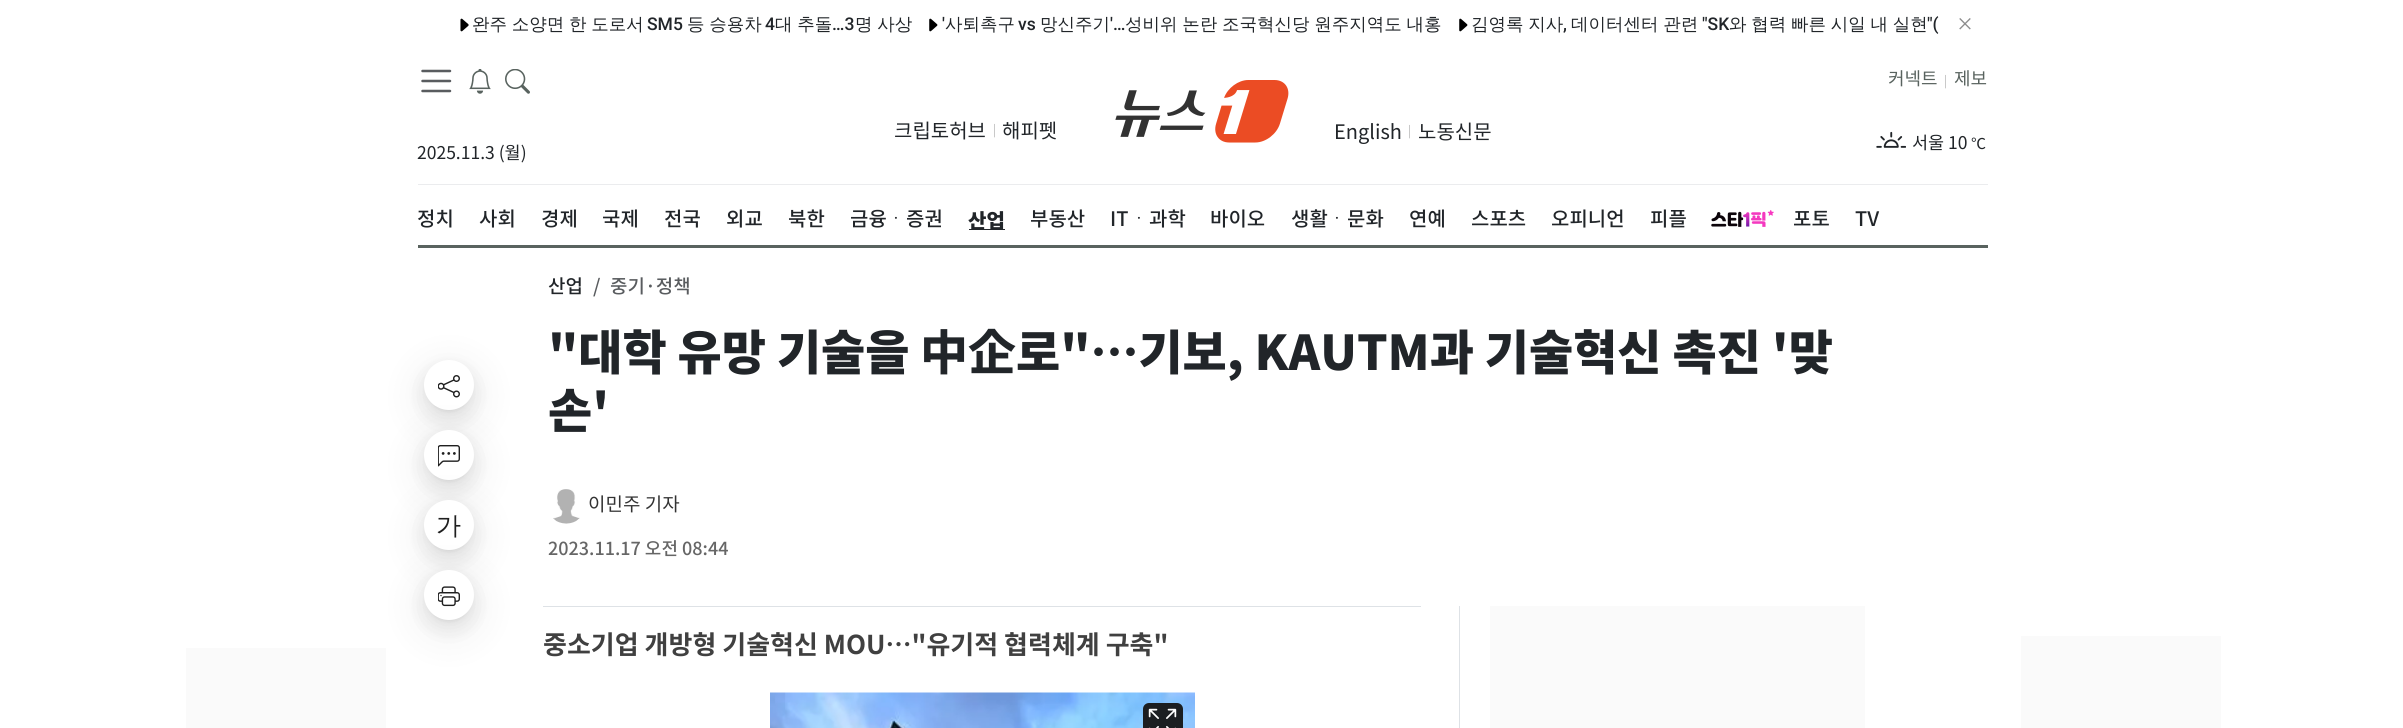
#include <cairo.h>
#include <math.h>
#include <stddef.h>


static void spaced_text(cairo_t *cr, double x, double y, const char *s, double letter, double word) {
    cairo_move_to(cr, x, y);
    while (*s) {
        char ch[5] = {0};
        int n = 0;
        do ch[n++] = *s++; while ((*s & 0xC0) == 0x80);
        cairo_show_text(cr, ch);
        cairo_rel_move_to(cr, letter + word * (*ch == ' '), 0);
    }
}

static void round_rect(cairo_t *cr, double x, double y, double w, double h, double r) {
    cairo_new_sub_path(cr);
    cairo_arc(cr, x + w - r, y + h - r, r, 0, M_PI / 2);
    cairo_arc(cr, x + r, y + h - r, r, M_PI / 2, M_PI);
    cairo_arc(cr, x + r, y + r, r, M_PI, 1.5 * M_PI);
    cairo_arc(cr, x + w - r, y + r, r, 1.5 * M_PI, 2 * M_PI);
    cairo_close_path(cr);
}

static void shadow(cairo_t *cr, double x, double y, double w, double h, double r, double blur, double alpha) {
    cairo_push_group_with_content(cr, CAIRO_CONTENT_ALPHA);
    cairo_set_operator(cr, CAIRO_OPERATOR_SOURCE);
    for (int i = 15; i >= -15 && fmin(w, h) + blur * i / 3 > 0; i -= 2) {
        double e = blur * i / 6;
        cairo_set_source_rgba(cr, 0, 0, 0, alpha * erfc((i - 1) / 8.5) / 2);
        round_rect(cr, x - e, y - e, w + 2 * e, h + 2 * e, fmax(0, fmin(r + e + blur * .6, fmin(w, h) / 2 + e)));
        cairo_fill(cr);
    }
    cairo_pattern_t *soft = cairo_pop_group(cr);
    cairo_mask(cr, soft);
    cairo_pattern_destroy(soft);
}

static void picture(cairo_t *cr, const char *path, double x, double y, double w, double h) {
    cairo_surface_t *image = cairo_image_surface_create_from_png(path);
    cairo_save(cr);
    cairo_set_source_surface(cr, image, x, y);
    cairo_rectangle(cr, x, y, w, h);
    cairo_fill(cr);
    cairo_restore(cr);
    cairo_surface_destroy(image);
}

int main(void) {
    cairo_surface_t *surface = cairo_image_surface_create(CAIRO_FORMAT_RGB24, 2403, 728);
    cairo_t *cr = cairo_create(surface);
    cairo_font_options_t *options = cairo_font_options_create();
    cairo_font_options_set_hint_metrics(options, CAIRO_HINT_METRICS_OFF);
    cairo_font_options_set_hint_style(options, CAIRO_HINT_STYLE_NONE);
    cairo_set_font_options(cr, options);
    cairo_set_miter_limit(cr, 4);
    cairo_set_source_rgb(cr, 1, 1, 1);
    cairo_paint(cr);
    picture(cr, "img1.png", 460, 18, 9, 14);
    cairo_select_font_face(cr, "WenQuanYi Zen Hei Medium", CAIRO_FONT_SLANT_NORMAL, CAIRO_FONT_WEIGHT_NORMAL);
    cairo_set_font_size(cr, 17.5);
    cairo_set_source_rgb(cr, 0.129, 0.145, 0.161);
    spaced_text(cr, 472, 30, "완주 소양면 한 도로서", 0, -0.5);
    cairo_select_font_face(cr, "Roboto Medium", CAIRO_FONT_SLANT_NORMAL, CAIRO_FONT_WEIGHT_NORMAL);
    cairo_move_to(cr, 647, 30);
    cairo_show_text(cr, "SM5");
    cairo_select_font_face(cr, "WenQuanYi Zen Hei Medium", CAIRO_FONT_SLANT_NORMAL, CAIRO_FONT_WEIGHT_NORMAL);
    spaced_text(cr, 687, 30, "등 승용차", 0, -0.5);
    cairo_select_font_face(cr, "Roboto Medium", CAIRO_FONT_SLANT_NORMAL, CAIRO_FONT_WEIGHT_NORMAL);
    cairo_move_to(cr, 765, 30);
    cairo_show_text(cr, "4");
    cairo_select_font_face(cr, "WenQuanYi Zen Hei Medium", CAIRO_FONT_SLANT_NORMAL, CAIRO_FONT_WEIGHT_NORMAL);
    spaced_text(cr, 775, 30, "대 추돌", 0, -0.5);
    cairo_select_font_face(cr, "Roboto Medium", CAIRO_FONT_SLANT_NORMAL, CAIRO_FONT_WEIGHT_NORMAL);
    cairo_move_to(cr, 832, 30);
    cairo_show_text(cr, "…3");
    cairo_select_font_face(cr, "WenQuanYi Zen Hei Medium", CAIRO_FONT_SLANT_NORMAL, CAIRO_FONT_WEIGHT_NORMAL);
    spaced_text(cr, 855, 30, "명 사상", 0, -0.5);
    picture(cr, "img2.png", 929, 18, 9, 14);
    cairo_select_font_face(cr, "Roboto Medium", CAIRO_FONT_SLANT_NORMAL, CAIRO_FONT_WEIGHT_NORMAL);
    cairo_move_to(cr, 942, 30);
    cairo_show_text(cr, "'");
    cairo_select_font_face(cr, "WenQuanYi Zen Hei Medium", CAIRO_FONT_SLANT_NORMAL, CAIRO_FONT_WEIGHT_NORMAL);
    cairo_move_to(cr, 945, 30);
    cairo_show_text(cr, "사퇴촉구");
    cairo_select_font_face(cr, "Roboto Medium", CAIRO_FONT_SLANT_NORMAL, CAIRO_FONT_WEIGHT_NORMAL);
    cairo_move_to(cr, 1018, 30);
    cairo_show_text(cr, "vs");
    cairo_select_font_face(cr, "WenQuanYi Zen Hei Medium", CAIRO_FONT_SLANT_NORMAL, CAIRO_FONT_WEIGHT_NORMAL);
    cairo_move_to(cr, 1040, 30);
    cairo_show_text(cr, "망신주기");
    cairo_select_font_face(cr, "Roboto Medium", CAIRO_FONT_SLANT_NORMAL, CAIRO_FONT_WEIGHT_NORMAL);
    cairo_move_to(cr, 1110, 30);
    cairo_show_text(cr, "'…");
    cairo_select_font_face(cr, "WenQuanYi Zen Hei Medium", CAIRO_FONT_SLANT_NORMAL, CAIRO_FONT_WEIGHT_NORMAL);
    spaced_text(cr, 1125, 30, "성비위 논란 조국혁신당 원주지역도 내홍", 0, -0.5);
    picture(cr, "img2.png", 1459, 18, 9, 14);
    spaced_text(cr, 1471, 30, "김영록 지사", 0, -0.5);
    cairo_select_font_face(cr, "Roboto Medium", CAIRO_FONT_SLANT_NORMAL, CAIRO_FONT_WEIGHT_NORMAL);
    cairo_move_to(cr, 1563, 30);
    cairo_show_text(cr, ",");
    cairo_select_font_face(cr, "WenQuanYi Zen Hei Medium", CAIRO_FONT_SLANT_NORMAL, CAIRO_FONT_WEIGHT_NORMAL);
    spaced_text(cr, 1571, 30, "데이터센터 관련", 0, -0.5);
    cairo_select_font_face(cr, "Roboto Medium", CAIRO_FONT_SLANT_NORMAL, CAIRO_FONT_WEIGHT_NORMAL);
    cairo_move_to(cr, 1702, 30);
    cairo_show_text(cr, "\"SK");
    cairo_select_font_face(cr, "WenQuanYi Zen Hei Medium", CAIRO_FONT_SLANT_NORMAL, CAIRO_FONT_WEIGHT_NORMAL);
    spaced_text(cr, 1729, 30, "와 협력 빠른 시일 내 실현", 0, -0.5);
    cairo_select_font_face(cr, "Roboto Medium", CAIRO_FONT_SLANT_NORMAL, CAIRO_FONT_WEIGHT_NORMAL);
    cairo_move_to(cr, 1927, 30);
    cairo_show_text(cr, "\"(");
    picture(cr, "img3.png", 1959, 18, 12, 12);
    cairo_set_source_rgb(cr, 0.918, 0.925, 0.933);
    cairo_rectangle(cr, 418, 184, 1570, 1);
    cairo_fill(cr);
    cairo_select_font_face(cr, "Noto Sans KR", CAIRO_FONT_SLANT_NORMAL, CAIRO_FONT_WEIGHT_NORMAL);
    cairo_set_font_size(cr, 20);
    cairo_set_source_rgb(cr, 0.129, 0.145, 0.161);
    cairo_move_to(cr, 894, 138);
    cairo_show_text(cr, "크립토허브");
    cairo_set_font_size(cr, 12);
    cairo_set_source_rgb(cr, 0.725, 0.725, 0.725);
    cairo_move_to(cr, 993, 134);
    cairo_show_text(cr, "|");
    cairo_set_font_size(cr, 20);
    cairo_set_source_rgb(cr, 0.129, 0.145, 0.161);
    cairo_move_to(cr, 1002, 138);
    cairo_show_text(cr, "해피펫");
    cairo_new_path(cr);
    cairo_move_to(cr, 422.5, 71);
    cairo_line_to(cr, 450, 71);
    cairo_move_to(cr, 422.5, 81);
    cairo_line_to(cr, 450, 81);
    cairo_move_to(cr, 422.5, 91);
    cairo_line_to(cr, 450, 91);
    cairo_set_source_rgb(cr, 0.349, 0.361, 0.373);
    cairo_set_line_width(cr, 2.5);
    cairo_set_line_cap(cr, CAIRO_LINE_CAP_ROUND);
    cairo_stroke(cr);
    picture(cr, "img4.png", 469, 69, 22, 25);
    picture(cr, "img5.png", 505, 69, 25, 25);
    cairo_set_font_size(cr, 17.5);
    cairo_set_source_rgb(cr, 0.129, 0.145, 0.161);
    cairo_move_to(cr, 417, 159);
    cairo_show_text(cr, "2025.11.3 (월)");
    picture(cr, "img6.png", 1115, 80, 174, 63);
    cairo_set_font_size(cr, 18);
    cairo_set_source_rgb(cr, 0.349, 0.388, 0.373);
    cairo_move_to(cr, 1888, 85);
    cairo_show_text(cr, "커넥트");
    cairo_set_font_size(cr, 12);
    cairo_set_source_rgb(cr, 0.725, 0.725, 0.725);
    cairo_move_to(cr, 1944, 85);
    cairo_show_text(cr, "|");
    cairo_set_font_size(cr, 18);
    cairo_set_source_rgb(cr, 0.349, 0.388, 0.373);
    cairo_move_to(cr, 1954, 85);
    cairo_show_text(cr, "제보");
    cairo_set_font_size(cr, 20);
    cairo_set_source_rgb(cr, 0.129, 0.145, 0.161);
    cairo_move_to(cr, 1334, 139);
    cairo_show_text(cr, "English");
    cairo_set_font_size(cr, 12);
    cairo_set_source_rgb(cr, 0.725, 0.725, 0.725);
    cairo_move_to(cr, 1408, 135);
    cairo_show_text(cr, "|");
    cairo_set_font_size(cr, 20);
    cairo_set_source_rgb(cr, 0.129, 0.145, 0.161);
    cairo_move_to(cr, 1418, 139);
    cairo_show_text(cr, "노동신문");
    picture(cr, "img7.png", 1876, 131, 30, 17);
    cairo_set_font_size(cr, 17.5);
    cairo_move_to(cr, 1912, 149);
    cairo_show_text(cr, "서울 10");
    cairo_set_font_size(cr, 15);
    cairo_move_to(cr, 1971, 149);
    cairo_show_text(cr, "℃");
    cairo_set_source_rgb(cr, 0.349, 0.388, 0.373);
    cairo_rectangle(cr, 418, 245, 1570, 3);
    cairo_fill(cr);
    cairo_select_font_face(cr, "Noto Sans KR Medium", CAIRO_FONT_SLANT_NORMAL, CAIRO_FONT_WEIGHT_NORMAL);
    cairo_set_font_size(cr, 20);
    cairo_set_source_rgb(cr, 0.129, 0.145, 0.161);
    cairo_move_to(cr, 417, 226);
    cairo_show_text(cr, "정치");
    cairo_move_to(cr, 479, 226);
    cairo_show_text(cr, "사회");
    cairo_move_to(cr, 541, 226);
    cairo_show_text(cr, "경제");
    cairo_move_to(cr, 602, 226);
    cairo_show_text(cr, "국제");
    cairo_move_to(cr, 664, 226);
    cairo_show_text(cr, "전국");
    cairo_move_to(cr, 726, 226);
    cairo_show_text(cr, "외교");
    cairo_move_to(cr, 788, 226);
    cairo_show_text(cr, "북한");
    cairo_move_to(cr, 850, 226);
    cairo_show_text(cr, "금융");
    cairo_select_font_face(cr, "WenQuanYi Zen Hei Medium", CAIRO_FONT_SLANT_NORMAL, CAIRO_FONT_WEIGHT_NORMAL);
    cairo_move_to(cr, 886, 226);
    cairo_show_text(cr, "ㆍ");
    cairo_select_font_face(cr, "Noto Sans KR Medium", CAIRO_FONT_SLANT_NORMAL, CAIRO_FONT_WEIGHT_NORMAL);
    cairo_move_to(cr, 906, 226);
    cairo_show_text(cr, "증권");
    cairo_rectangle(cr, 969, 229, 36, 1);
    cairo_fill(cr);
    cairo_select_font_face(cr, "Noto Sans KR Black", CAIRO_FONT_SLANT_NORMAL, CAIRO_FONT_WEIGHT_NORMAL);
    cairo_move_to(cr, 968, 228);
    cairo_show_text(cr, "산업");
    cairo_select_font_face(cr, "Noto Sans KR Medium", CAIRO_FONT_SLANT_NORMAL, CAIRO_FONT_WEIGHT_NORMAL);
    cairo_move_to(cr, 1030, 226);
    cairo_show_text(cr, "부동산");
    cairo_move_to(cr, 1110, 226);
    cairo_show_text(cr, "IT");
    cairo_select_font_face(cr, "WenQuanYi Zen Hei Medium", CAIRO_FONT_SLANT_NORMAL, CAIRO_FONT_WEIGHT_NORMAL);
    cairo_move_to(cr, 1129, 226);
    cairo_show_text(cr, "ㆍ");
    cairo_select_font_face(cr, "Noto Sans KR Medium", CAIRO_FONT_SLANT_NORMAL, CAIRO_FONT_WEIGHT_NORMAL);
    cairo_move_to(cr, 1149, 226);
    cairo_show_text(cr, "과학");
    cairo_move_to(cr, 1210, 226);
    cairo_show_text(cr, "바이오");
    cairo_move_to(cr, 1291, 226);
    cairo_show_text(cr, "생활");
    cairo_select_font_face(cr, "WenQuanYi Zen Hei Medium", CAIRO_FONT_SLANT_NORMAL, CAIRO_FONT_WEIGHT_NORMAL);
    cairo_move_to(cr, 1327, 226);
    cairo_show_text(cr, "ㆍ");
    cairo_select_font_face(cr, "Noto Sans KR Medium", CAIRO_FONT_SLANT_NORMAL, CAIRO_FONT_WEIGHT_NORMAL);
    cairo_move_to(cr, 1347, 226);
    cairo_show_text(cr, "문화");
    cairo_move_to(cr, 1409, 226);
    cairo_show_text(cr, "연예");
    cairo_move_to(cr, 1471, 226);
    cairo_show_text(cr, "스포츠");
    cairo_move_to(cr, 1551, 226);
    cairo_show_text(cr, "오피니언");
    cairo_move_to(cr, 1650, 226);
    cairo_show_text(cr, "피플");
    picture(cr, "img8.png", 1711, 210, 63, 17);
    cairo_move_to(cr, 1793, 226);
    cairo_show_text(cr, "포토");
    cairo_move_to(cr, 1855, 226);
    cairo_show_text(cr, "TV");
    cairo_set_source_rgb(cr, 0, 0, 0);
    shadow(cr, 414, 361, 70, 70, 35, 17.5, 0.05);
    shadow(cr, 429, 369, 40, 40, 20, 4, 0.12);
    shadow(cr, 424, 368, 50, 50, 25, 10, 0.08);
    cairo_set_source_rgb(cr, 1, 1, 1);
    cairo_arc(cr, 449, 385, 25, 0, 2 * M_PI);
    cairo_fill(cr);
    picture(cr, "img9.png", 438, 375, 22, 23);
    cairo_set_source_rgb(cr, 0, 0, 0);
    shadow(cr, 414, 431, 70, 70, 35, 17.5, 0.05);
    shadow(cr, 429, 439, 40, 40, 20, 4, 0.12);
    shadow(cr, 424, 438, 50, 50, 25, 10, 0.08);
    cairo_set_source_rgb(cr, 1, 1, 1);
    cairo_arc(cr, 449, 455, 25, 0, 2 * M_PI);
    cairo_fill(cr);
    picture(cr, "img10.png", 438, 445, 22, 22);
    cairo_set_source_rgb(cr, 0, 0, 0);
    shadow(cr, 414, 501, 70, 70, 35, 17.5, 0.05);
    shadow(cr, 429, 509, 40, 40, 20, 4, 0.12);
    shadow(cr, 424, 508, 50, 50, 25, 10, 0.08);
    cairo_set_source_rgb(cr, 1, 1, 1);
    cairo_arc(cr, 449, 525, 25, 0, 2 * M_PI);
    cairo_fill(cr);
    cairo_select_font_face(cr, "WenQuanYi Zen Hei Medium", CAIRO_FONT_SLANT_NORMAL, CAIRO_FONT_WEIGHT_NORMAL);
    cairo_set_font_size(cr, 25);
    cairo_set_source_rgb(cr, 0.122, 0.122, 0.122);
    cairo_move_to(cr, 436, 534);
    cairo_show_text(cr, "가");
    cairo_set_source_rgb(cr, 0, 0, 0);
    shadow(cr, 414, 571, 70, 70, 35, 17.5, 0.05);
    shadow(cr, 429, 579, 40, 40, 20, 4, 0.12);
    shadow(cr, 424, 578, 50, 50, 25, 10, 0.08);
    cairo_set_source_rgb(cr, 1, 1, 1);
    cairo_arc(cr, 449, 595, 25, 0, 2 * M_PI);
    cairo_fill(cr);
    picture(cr, "img11.png", 438, 586, 22, 21);
    cairo_select_font_face(cr, "Noto Sans KR Medium", CAIRO_FONT_SLANT_NORMAL, CAIRO_FONT_WEIGHT_NORMAL);
    cairo_set_font_size(cr, 19);
    cairo_set_source_rgb(cr, 0.129, 0.145, 0.161);
    cairo_move_to(cr, 548, 293);
    cairo_show_text(cr, "산업");
    cairo_set_source_rgb(cr, 0.349, 0.361, 0.373);
    cairo_move_to(cr, 593, 293);
    cairo_show_text(cr, "/");
    cairo_move_to(cr, 610, 293);
    cairo_show_text(cr, "중기·정책");
    cairo_select_font_face(cr, "Noto Sans KR Black", CAIRO_FONT_SLANT_NORMAL, CAIRO_FONT_WEIGHT_NORMAL);
    cairo_set_font_size(cr, 48);
    cairo_set_source_rgb(cr, 0.129, 0.145, 0.161);
    cairo_move_to(cr, 548, 370);
    cairo_show_text(cr, "\"대학 유망 기술을");
    cairo_select_font_face(cr, "Noto Sans KR ExtraBold", CAIRO_FONT_SLANT_NORMAL, CAIRO_FONT_WEIGHT_NORMAL);
    cairo_move_to(cr, 920, 370);
    cairo_show_text(cr, "中企");
    cairo_select_font_face(cr, "Noto Sans KR Black", CAIRO_FONT_SLANT_NORMAL, CAIRO_FONT_WEIGHT_NORMAL);
    cairo_move_to(cr, 1016, 370);
    cairo_show_text(cr, "로\"…기보, KAUTM과 기술혁신 촉진 '맞");
    cairo_move_to(cr, 548, 428);
    cairo_show_text(cr, "손'");
    picture(cr, "img12.png", 553, 489, 27, 35);
    cairo_select_font_face(cr, "Noto Sans KR", CAIRO_FONT_SLANT_NORMAL, CAIRO_FONT_WEIGHT_NORMAL);
    cairo_set_font_size(cr, 19);
    cairo_set_source_rgb(cr, 0.2, 0.2, 0.2);
    cairo_move_to(cr, 588, 511);
    cairo_show_text(cr, "이민주 기자");
    cairo_select_font_face(cr, "Noto Sans KR Medium", CAIRO_FONT_SLANT_NORMAL, CAIRO_FONT_WEIGHT_NORMAL);
    cairo_set_font_size(cr, 18);
    cairo_set_source_rgb(cr, 0.4, 0.4, 0.4);
    cairo_move_to(cr, 548, 555);
    cairo_show_text(cr, "2023.11.17 오전 08:44");
    cairo_set_source_rgb(cr, 0.871, 0.886, 0.902);
    cairo_rectangle(cr, 543, 606, 878, 1);
    cairo_fill(cr);
    cairo_select_font_face(cr, "Noto Sans KR", CAIRO_FONT_SLANT_NORMAL, CAIRO_FONT_WEIGHT_BOLD);
    cairo_set_font_size(cr, 26);
    cairo_set_source_rgb(cr, 0.251, 0.251, 0.251);
    cairo_move_to(cr, 543, 654);
    cairo_show_text(cr, "중소기업 개방형 기술혁신 MOU…\"유기적 협력체계 구축\"");
    picture(cr, "img13.png", 770, 692, 425, 36);
    cairo_set_source_rgb(cr, 0.106, 0.118, 0.129);
    round_rect(cr, 1143, 703, 40, 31, 6);
    cairo_fill(cr);
    picture(cr, "img14.png", 1148, 708, 29, 20);
    cairo_set_source_rgb(cr, 0.871, 0.886, 0.902);
    cairo_rectangle(cr, 1459, 606, 1, 122);
    cairo_fill(cr);
    cairo_set_source_rgb(cr, 0.98, 0.98, 0.98);
    cairo_rectangle(cr, 1490, 606, 375, 122);
    cairo_fill(cr);
    cairo_rectangle(cr, 186, 648, 200, 80);
    cairo_fill(cr);
    cairo_rectangle(cr, 2021, 636, 200, 92);
    cairo_fill(cr);
    cairo_surface_write_to_png(surface, "page.png");
    cairo_font_options_destroy(options);
    cairo_destroy(cr);
    cairo_surface_destroy(surface);
    return 0;
}
